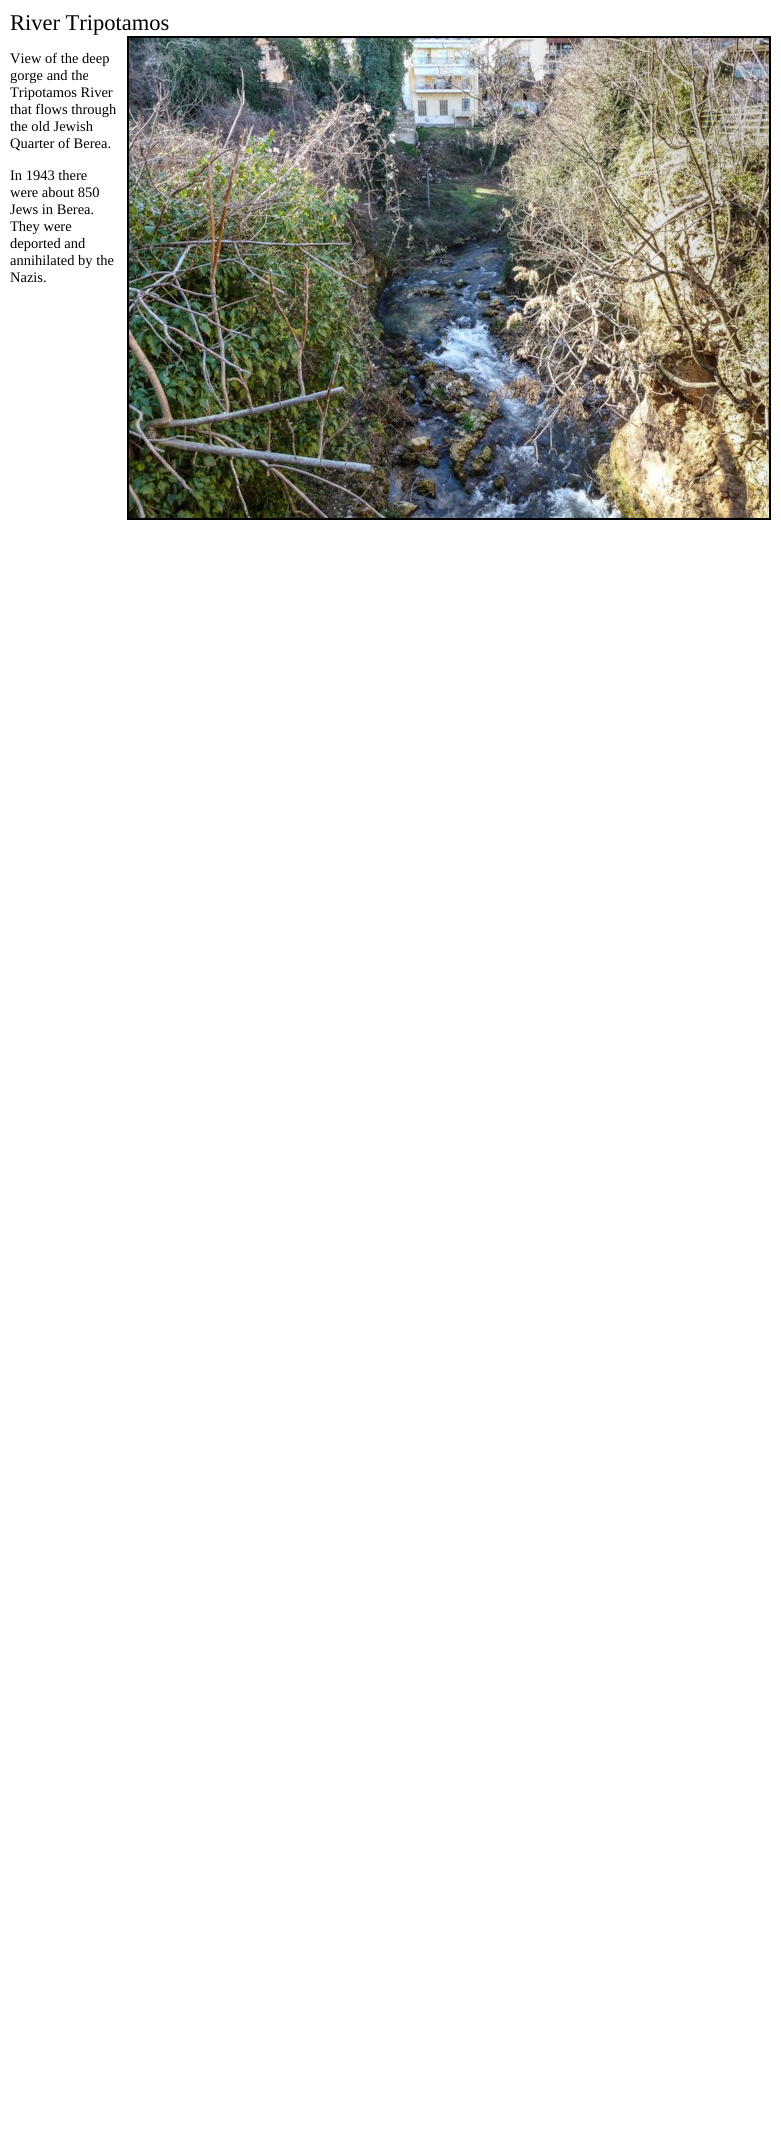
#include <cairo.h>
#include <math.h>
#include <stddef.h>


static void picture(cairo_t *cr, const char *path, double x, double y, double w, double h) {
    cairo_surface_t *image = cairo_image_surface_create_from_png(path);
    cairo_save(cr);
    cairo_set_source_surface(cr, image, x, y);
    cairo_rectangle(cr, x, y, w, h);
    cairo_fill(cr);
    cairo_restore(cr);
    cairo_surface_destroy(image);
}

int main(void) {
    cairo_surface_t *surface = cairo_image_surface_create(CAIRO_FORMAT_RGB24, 781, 2147);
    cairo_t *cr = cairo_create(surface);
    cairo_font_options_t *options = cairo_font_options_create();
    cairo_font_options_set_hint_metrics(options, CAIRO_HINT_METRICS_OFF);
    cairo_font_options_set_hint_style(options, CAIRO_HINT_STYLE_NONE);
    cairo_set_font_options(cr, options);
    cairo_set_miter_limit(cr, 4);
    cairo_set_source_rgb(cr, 1, 1, 1);
    cairo_paint(cr);
    cairo_select_font_face(cr, "Liberation Serif", CAIRO_FONT_SLANT_NORMAL, CAIRO_FONT_WEIGHT_NORMAL);
    cairo_set_font_size(cr, 22.5);
    cairo_set_source_rgb(cr, 0, 0, 0);
    cairo_move_to(cr, 10, 30);
    cairo_show_text(cr, "River Tripotamos");
    cairo_set_font_size(cr, 14.5);
    cairo_move_to(cr, 10, 63);
    cairo_show_text(cr, "View of the deep");
    cairo_move_to(cr, 10, 80);
    cairo_show_text(cr, "gorge and the");
    cairo_move_to(cr, 10, 97);
    cairo_show_text(cr, "Tripotamos River");
    cairo_move_to(cr, 10, 114);
    cairo_show_text(cr, "that flows through");
    cairo_move_to(cr, 10, 131);
    cairo_show_text(cr, "the old Jewish");
    cairo_move_to(cr, 10, 148);
    cairo_show_text(cr, "Quarter of Berea.");
    cairo_rectangle(cr, 128, 37, 642, 482);
    cairo_stroke(cr);
    picture(cr, "img1.png", 129, 38, 640, 480);
    cairo_move_to(cr, 10, 180);
    cairo_show_text(cr, "In 1943 there");
    cairo_move_to(cr, 10, 197);
    cairo_show_text(cr, "were about 850");
    cairo_move_to(cr, 10, 214);
    cairo_show_text(cr, "Jews in Berea.");
    cairo_move_to(cr, 10, 231);
    cairo_show_text(cr, "They were");
    cairo_move_to(cr, 10, 248);
    cairo_show_text(cr, "deported and");
    cairo_move_to(cr, 10, 265);
    cairo_show_text(cr, "annihilated by the");
    cairo_move_to(cr, 10, 282);
    cairo_show_text(cr, "Nazis.");
    cairo_surface_write_to_png(surface, "page.png");
    cairo_font_options_destroy(options);
    cairo_destroy(cr);
    cairo_surface_destroy(surface);
    return 0;
}
